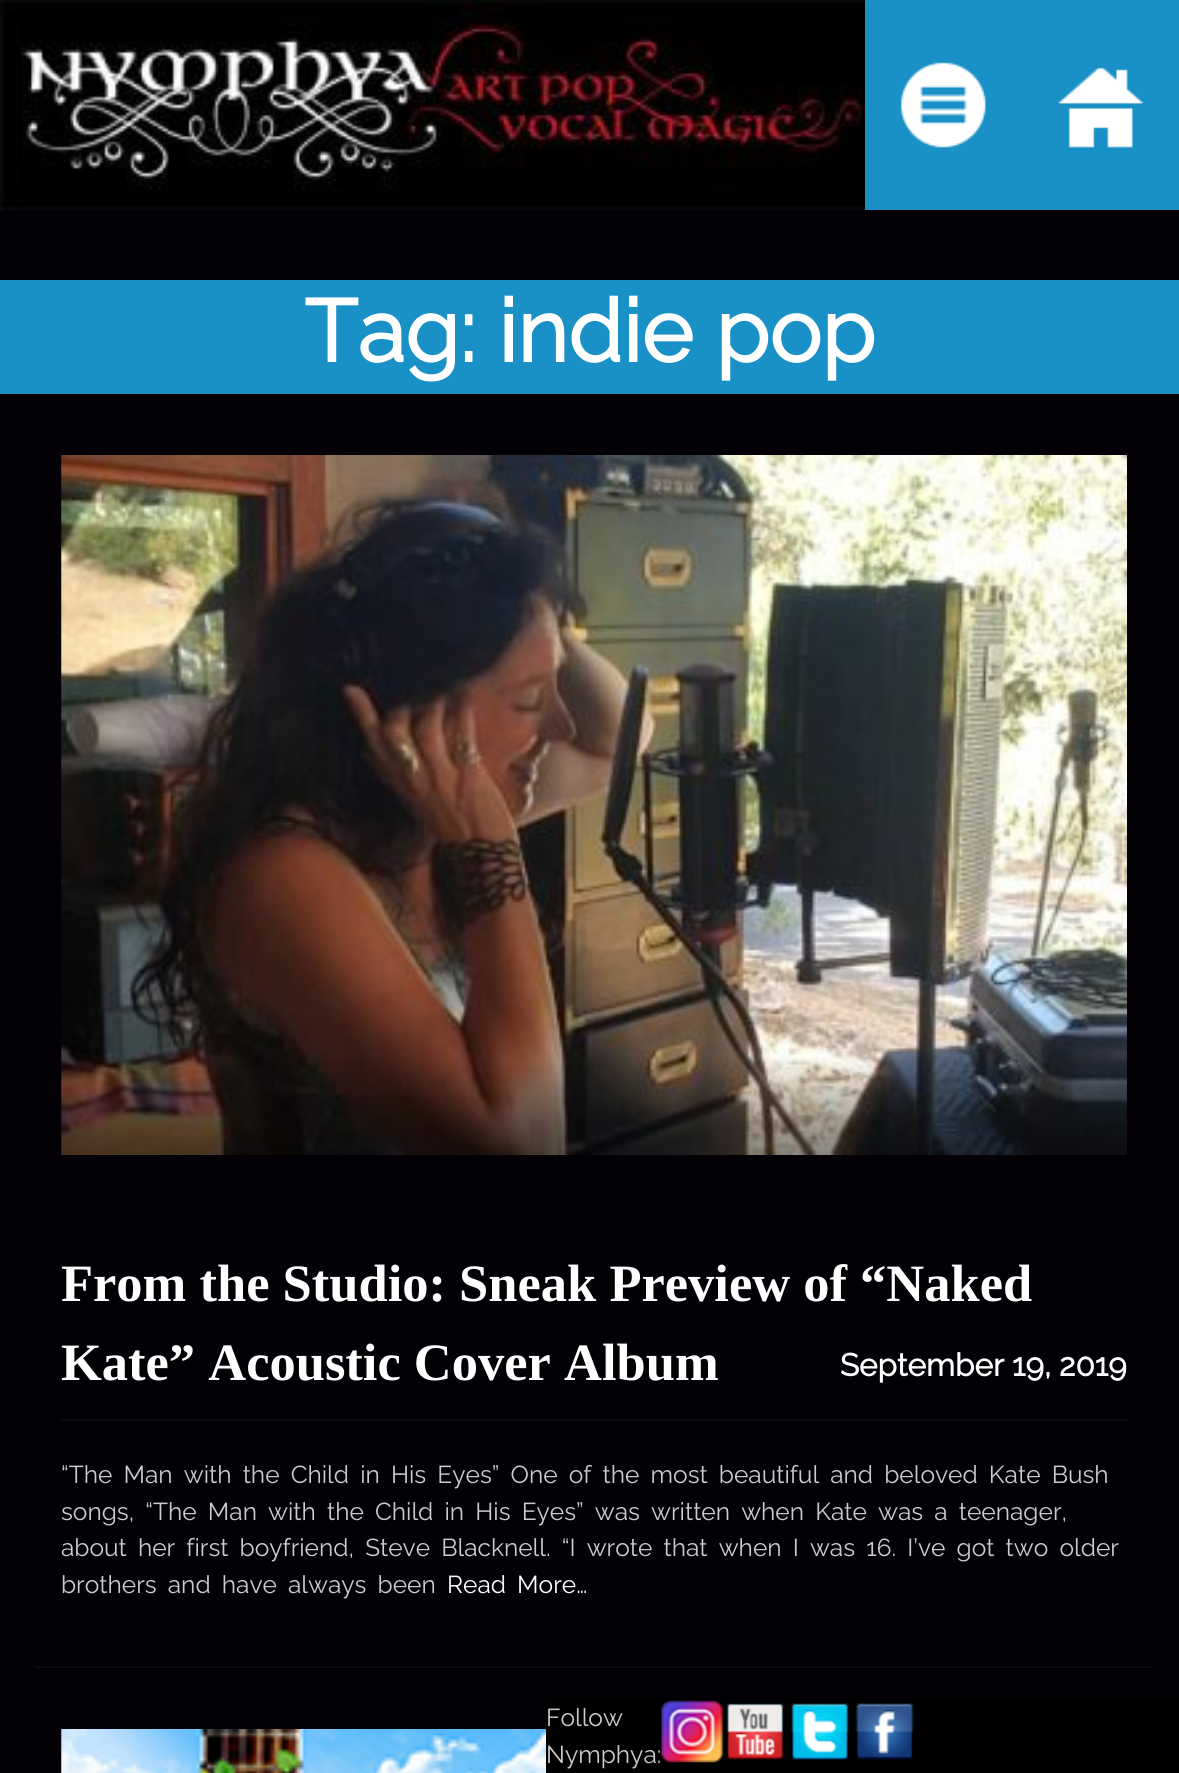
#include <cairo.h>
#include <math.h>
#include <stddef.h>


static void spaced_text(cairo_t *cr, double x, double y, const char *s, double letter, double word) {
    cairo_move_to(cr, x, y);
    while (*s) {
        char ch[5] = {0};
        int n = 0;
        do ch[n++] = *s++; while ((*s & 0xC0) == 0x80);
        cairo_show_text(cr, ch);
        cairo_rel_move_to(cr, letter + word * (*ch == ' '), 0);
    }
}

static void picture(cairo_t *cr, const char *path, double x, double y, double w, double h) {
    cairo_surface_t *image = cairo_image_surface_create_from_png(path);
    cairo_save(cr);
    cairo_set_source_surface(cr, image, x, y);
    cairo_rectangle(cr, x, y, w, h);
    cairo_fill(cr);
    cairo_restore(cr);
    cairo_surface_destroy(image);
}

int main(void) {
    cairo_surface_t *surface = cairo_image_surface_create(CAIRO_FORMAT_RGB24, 1179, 1773);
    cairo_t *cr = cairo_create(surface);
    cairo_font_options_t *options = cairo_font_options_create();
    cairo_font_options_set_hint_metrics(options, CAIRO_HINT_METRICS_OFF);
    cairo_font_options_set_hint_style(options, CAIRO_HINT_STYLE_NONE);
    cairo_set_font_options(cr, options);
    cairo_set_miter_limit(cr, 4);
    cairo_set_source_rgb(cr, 0.012, 0.004, 0.02);
    cairo_paint(cr);
    picture(cr, "img1.png", 0, 0, 865, 210);
    cairo_set_source_rgb(cr, 0.098, 0.565, 0.776);
    cairo_rectangle(cr, 865, 0, 314, 210);
    cairo_fill(cr);
    picture(cr, "img2.png", 900, 62, 86, 86);
    picture(cr, "img3.png", 1058, 66, 86, 82);
    cairo_rectangle(cr, 0, 280, 1179, 114);
    cairo_fill(cr);
    cairo_select_font_face(cr, "Raleway", CAIRO_FONT_SLANT_NORMAL, CAIRO_FONT_WEIGHT_BOLD);
    cairo_set_font_size(cr, 87.5);
    cairo_set_source_rgb(cr, 1, 1, 1);
    cairo_move_to(cr, 304, 362);
    cairo_show_text(cr, "Tag: indie pop");
    picture(cr, "img4.png", 61, 455, 1066, 700);
    cairo_select_font_face(cr, "Liberation Serif", CAIRO_FONT_SLANT_NORMAL, CAIRO_FONT_WEIGHT_BOLD);
    cairo_set_font_size(cr, 52.5);
    cairo_move_to(cr, 61, 1301);
    cairo_show_text(cr, "From the Studio: Sneak Preview of “Naked");
    cairo_move_to(cr, 61, 1380);
    cairo_show_text(cr, "Kate” Acoustic Cover Album");
    cairo_select_font_face(cr, "Raleway", CAIRO_FONT_SLANT_NORMAL, CAIRO_FONT_WEIGHT_BOLD);
    cairo_set_font_size(cr, 31.5);
    cairo_move_to(cr, 840, 1376);
    cairo_show_text(cr, "September 19, 2019");
    picture(cr, "img5.png", 61, 1419, 1066, 2);
    cairo_select_font_face(cr, "Raleway Thin", CAIRO_FONT_SLANT_NORMAL, CAIRO_FONT_WEIGHT_NORMAL);
    cairo_set_font_size(cr, 24.5);
    cairo_set_source_rgb(cr, 0.8, 0.8, 0.8);
    spaced_text(cr, 61, 1483, "“The Man with the Child in His Eyes” One of the most beautiful and beloved Kate Bush", 0, 4.9);
    spaced_text(cr, 61, 1520, "songs, “The Man with the Child in His Eyes” was written when Kate was a teenager,", 0, 4.9);
    spaced_text(cr, 61, 1556, "about her first boyfriend, Steve Blacknell. “I wrote that when I was 16. I’ve got two older", 0, 4.9);
    spaced_text(cr, 61, 1593, "brothers and have always been", 0, 4.9);
    cairo_set_source_rgb(cr, 1, 1, 1);
    spaced_text(cr, 447, 1593, "Read More…", 0, 4.9);
    picture(cr, "img6.png", 35, 1666, 1118, 2);
    picture(cr, "img7.png", 61, 1729, 485, 44);
    cairo_set_source_rgb(cr, 0, 0, 0);
    cairo_rectangle(cr, 546, 1699, 633, 74);
    cairo_fill(cr);
    cairo_set_source_rgb(cr, 0.8, 0.8, 0.8);
    cairo_move_to(cr, 546, 1726);
    cairo_show_text(cr, "Follow");
    cairo_move_to(cr, 546, 1763);
    cairo_show_text(cr, "Nymphya:");
    picture(cr, "img8.png", 661, 1700, 63, 63);
    picture(cr, "img9.png", 726, 1703, 58, 57);
    picture(cr, "img10.png", 791, 1703, 58, 57);
    picture(cr, "img11.png", 855, 1703, 59, 57);
    cairo_surface_write_to_png(surface, "page.png");
    cairo_font_options_destroy(options);
    cairo_destroy(cr);
    cairo_surface_destroy(surface);
    return 0;
}
